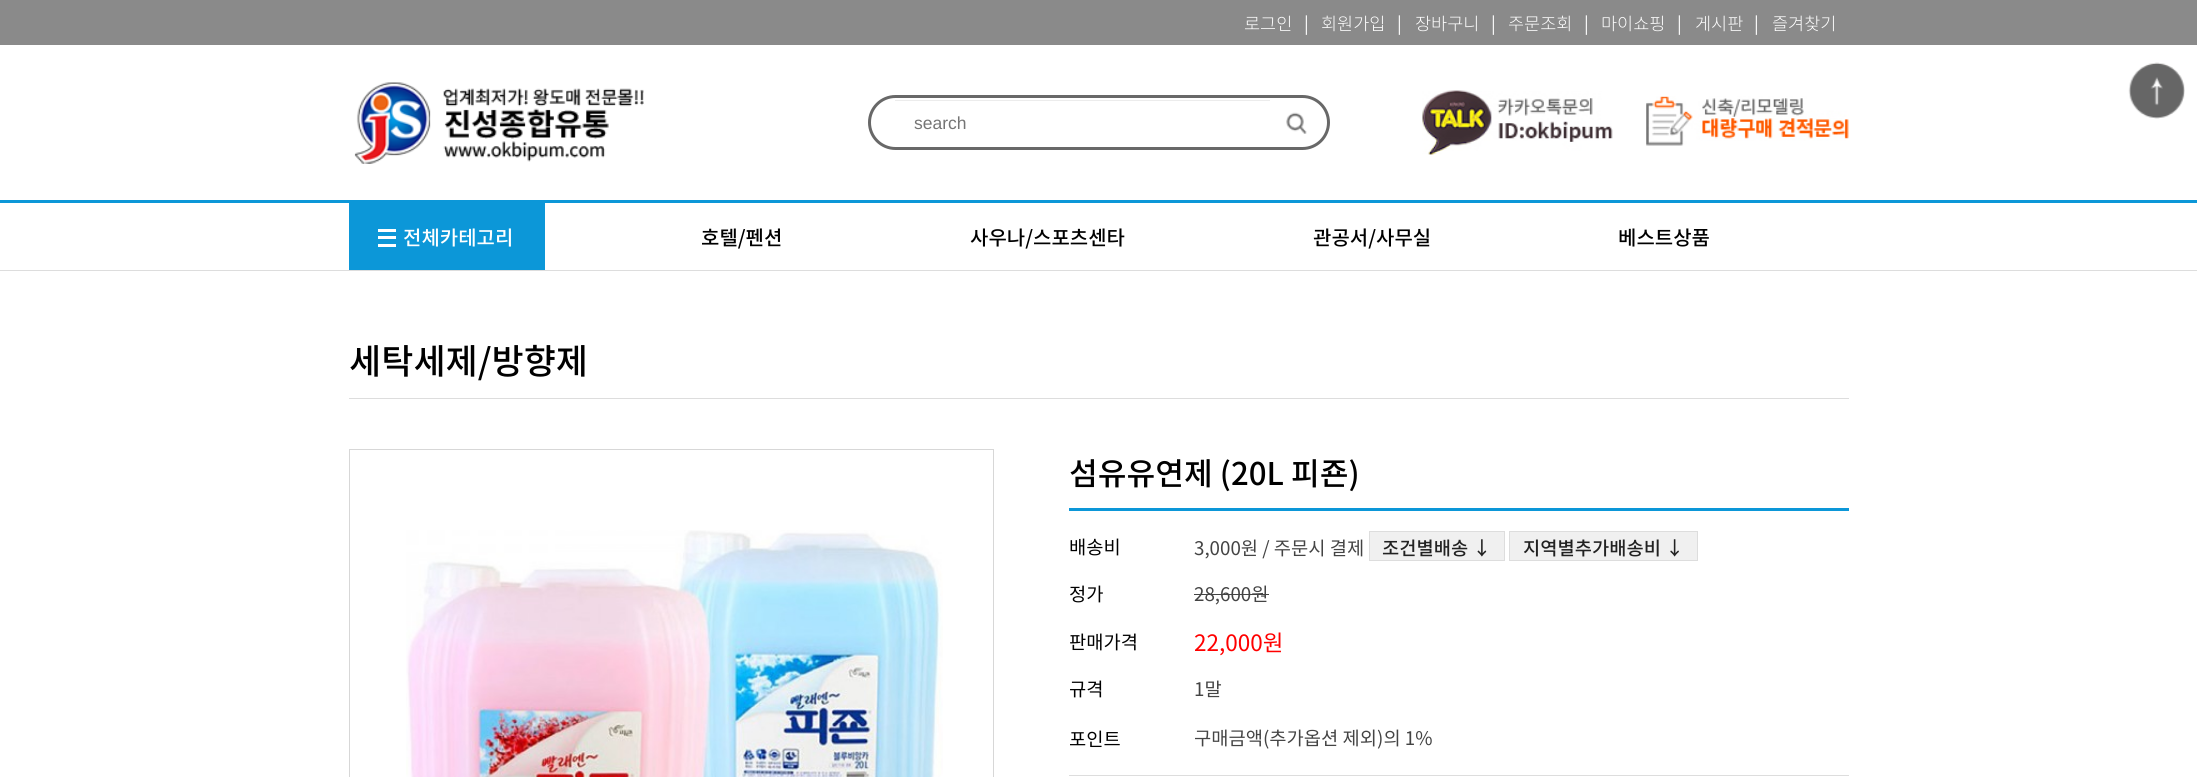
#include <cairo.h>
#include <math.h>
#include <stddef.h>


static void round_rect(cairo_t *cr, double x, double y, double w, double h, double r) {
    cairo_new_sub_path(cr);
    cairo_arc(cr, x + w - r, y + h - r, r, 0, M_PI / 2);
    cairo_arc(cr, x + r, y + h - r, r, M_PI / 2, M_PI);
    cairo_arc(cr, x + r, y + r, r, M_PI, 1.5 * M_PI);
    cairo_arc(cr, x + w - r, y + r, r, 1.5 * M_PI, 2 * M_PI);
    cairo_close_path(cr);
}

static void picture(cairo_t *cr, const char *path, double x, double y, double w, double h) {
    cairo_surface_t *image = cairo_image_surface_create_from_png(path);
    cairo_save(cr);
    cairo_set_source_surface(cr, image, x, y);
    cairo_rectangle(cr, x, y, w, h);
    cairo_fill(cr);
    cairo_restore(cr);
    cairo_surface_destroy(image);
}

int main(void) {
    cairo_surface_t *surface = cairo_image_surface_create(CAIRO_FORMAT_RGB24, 2197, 777);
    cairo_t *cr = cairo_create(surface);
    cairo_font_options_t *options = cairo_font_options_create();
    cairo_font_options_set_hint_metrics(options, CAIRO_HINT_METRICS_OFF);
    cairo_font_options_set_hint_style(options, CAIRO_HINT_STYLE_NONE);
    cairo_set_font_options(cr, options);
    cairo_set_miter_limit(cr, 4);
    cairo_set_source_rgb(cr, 1, 1, 1);
    cairo_paint(cr);
    cairo_set_source_rgb(cr, 0.541, 0.541, 0.541);
    cairo_rectangle(cr, 0, 0, 2197, 45);
    cairo_fill(cr);
    cairo_select_font_face(cr, "Noto Sans KR Light", CAIRO_FONT_SLANT_NORMAL, CAIRO_FONT_WEIGHT_NORMAL);
    cairo_set_font_size(cr, 17.5);
    cairo_set_source_rgb(cr, 1, 1, 1);
    cairo_move_to(cr, 1244, 30);
    cairo_show_text(cr, "로그인");
    cairo_select_font_face(cr, "Noto Sans KR", CAIRO_FONT_SLANT_NORMAL, CAIRO_FONT_WEIGHT_NORMAL);
    cairo_move_to(cr, 1304, 30);
    cairo_show_text(cr, "|");
    cairo_select_font_face(cr, "Noto Sans KR Light", CAIRO_FONT_SLANT_NORMAL, CAIRO_FONT_WEIGHT_NORMAL);
    cairo_move_to(cr, 1321, 30);
    cairo_show_text(cr, "회원가입");
    cairo_select_font_face(cr, "Noto Sans KR", CAIRO_FONT_SLANT_NORMAL, CAIRO_FONT_WEIGHT_NORMAL);
    cairo_move_to(cr, 1397, 30);
    cairo_show_text(cr, "|");
    cairo_select_font_face(cr, "Noto Sans KR Light", CAIRO_FONT_SLANT_NORMAL, CAIRO_FONT_WEIGHT_NORMAL);
    cairo_move_to(cr, 1415, 30);
    cairo_show_text(cr, "장바구니");
    cairo_select_font_face(cr, "Noto Sans KR", CAIRO_FONT_SLANT_NORMAL, CAIRO_FONT_WEIGHT_NORMAL);
    cairo_move_to(cr, 1491, 30);
    cairo_show_text(cr, "|");
    cairo_select_font_face(cr, "Noto Sans KR Light", CAIRO_FONT_SLANT_NORMAL, CAIRO_FONT_WEIGHT_NORMAL);
    cairo_move_to(cr, 1508, 30);
    cairo_show_text(cr, "주문조회");
    cairo_select_font_face(cr, "Noto Sans KR", CAIRO_FONT_SLANT_NORMAL, CAIRO_FONT_WEIGHT_NORMAL);
    cairo_move_to(cr, 1584, 30);
    cairo_show_text(cr, "|");
    cairo_select_font_face(cr, "Noto Sans KR Light", CAIRO_FONT_SLANT_NORMAL, CAIRO_FONT_WEIGHT_NORMAL);
    cairo_move_to(cr, 1601, 30);
    cairo_show_text(cr, "마이쇼핑");
    cairo_select_font_face(cr, "Noto Sans KR", CAIRO_FONT_SLANT_NORMAL, CAIRO_FONT_WEIGHT_NORMAL);
    cairo_move_to(cr, 1677, 30);
    cairo_show_text(cr, "|");
    cairo_select_font_face(cr, "Noto Sans KR Light", CAIRO_FONT_SLANT_NORMAL, CAIRO_FONT_WEIGHT_NORMAL);
    cairo_move_to(cr, 1695, 30);
    cairo_show_text(cr, "게시판");
    cairo_select_font_face(cr, "Noto Sans KR", CAIRO_FONT_SLANT_NORMAL, CAIRO_FONT_WEIGHT_NORMAL);
    cairo_move_to(cr, 1754, 30);
    cairo_show_text(cr, "|");
    cairo_select_font_face(cr, "Noto Sans KR Light", CAIRO_FONT_SLANT_NORMAL, CAIRO_FONT_WEIGHT_NORMAL);
    cairo_move_to(cr, 1772, 30);
    cairo_show_text(cr, "즐겨찾기");
    picture(cr, "img1.png", 354, 82, 290, 82);
    round_rect(cr, 869.5, 96.5, 459, 52, 26);
    cairo_set_source_rgb(cr, 0.408, 0.408, 0.408);
    cairo_set_line_width(cr, 3);
    cairo_stroke(cr);
    cairo_set_source_rgb(cr, 0.925, 0.925, 0.925);
    cairo_rectangle(cr, 895, 100, 375, 1);
    cairo_fill(cr);
    cairo_select_font_face(cr, "Liberation Sans", CAIRO_FONT_SLANT_NORMAL, CAIRO_FONT_WEIGHT_NORMAL);
    cairo_set_source_rgb(cr, 0.459, 0.459, 0.459);
    cairo_move_to(cr, 914, 129);
    cairo_show_text(cr, "search");
    picture(cr, "img2.png", 1286, 112, 21, 22);
    picture(cr, "img3.png", 1422, 90, 191, 65);
    picture(cr, "img4.png", 1646, 96, 203, 50);
    cairo_set_source_rgb(cr, 0.047, 0.592, 0.847);
    cairo_rectangle(cr, 0, 200, 2197, 3);
    cairo_fill(cr);
    cairo_set_source_rgb(cr, 0.867, 0.867, 0.867);
    cairo_rectangle(cr, 0, 270, 2197, 1);
    cairo_fill(cr);
    cairo_set_source_rgb(cr, 0.047, 0.592, 0.847);
    cairo_rectangle(cr, 349, 203, 196, 67);
    cairo_fill(cr);
    cairo_set_source_rgb(cr, 1, 1, 1);
    cairo_rectangle(cr, 378, 236, 18, 3);
    cairo_fill(cr);
    cairo_rectangle(cr, 378, 229, 18, 3);
    cairo_fill(cr);
    cairo_rectangle(cr, 378, 244, 18, 3);
    cairo_fill(cr);
    cairo_select_font_face(cr, "Noto Sans KR Medium", CAIRO_FONT_SLANT_NORMAL, CAIRO_FONT_WEIGHT_NORMAL);
    cairo_set_font_size(cr, 20);
    cairo_move_to(cr, 403, 245);
    cairo_show_text(cr, "전체카테고리");
    cairo_set_source_rgb(cr, 0, 0, 0);
    cairo_move_to(cr, 701, 245);
    cairo_show_text(cr, "호텔/펜션");
    cairo_move_to(cr, 970, 245);
    cairo_show_text(cr, "사우나/스포츠센타");
    cairo_move_to(cr, 1313, 245);
    cairo_show_text(cr, "관공서/사무실");
    cairo_move_to(cr, 1618, 245);
    cairo_show_text(cr, "베스트상품");
    picture(cr, "img5.png", 2128, 62, 57, 57);
    cairo_set_font_size(cr, 35);
    cairo_move_to(cr, 349, 374);
    cairo_show_text(cr, "세탁세제/방향제");
    cairo_set_source_rgb(cr, 0.867, 0.867, 0.867);
    cairo_rectangle(cr, 349, 398, 1500, 1);
    cairo_fill(cr);
    cairo_rectangle(cr, 349.5, 449.5, 644, 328);
    cairo_set_source_rgb(cr, 0.843, 0.843, 0.843);
    cairo_set_line_width(cr, 1);
    cairo_stroke(cr);
    picture(cr, "img6.png", 406, 530, 537, 247);
    cairo_set_font_size(cr, 31.25);
    cairo_set_source_rgb(cr, 0, 0, 0);
    cairo_move_to(cr, 1069, 485);
    cairo_show_text(cr, "섬유유연제 (20L 피죤)");
    cairo_set_source_rgb(cr, 0.047, 0.592, 0.847);
    cairo_rectangle(cr, 1069, 508, 780, 3);
    cairo_fill(cr);
    cairo_set_source_rgb(cr, 0.867, 0.867, 0.867);
    cairo_rectangle(cr, 1069, 775, 780, 1);
    cairo_fill(cr);
    cairo_select_font_face(cr, "Noto Sans KR", CAIRO_FONT_SLANT_NORMAL, CAIRO_FONT_WEIGHT_NORMAL);
    cairo_set_font_size(cr, 18.75);
    cairo_set_source_rgb(cr, 0, 0, 0);
    cairo_move_to(cr, 1069, 554);
    cairo_show_text(cr, "배송비");
    cairo_set_source_rgb(cr, 0.267, 0.267, 0.267);
    cairo_move_to(cr, 1194, 555);
    cairo_show_text(cr, "3,000원 / 주문시 결제");
    cairo_set_source_rgb(cr, 0.941, 0.941, 0.941);
    cairo_rectangle(cr, 1369.5, 531.5, 135, 29);
    cairo_fill_preserve(cr);
    cairo_set_source_rgb(cr, 0.867, 0.867, 0.867);
    cairo_stroke(cr);
    cairo_select_font_face(cr, "Noto Sans KR Medium", CAIRO_FONT_SLANT_NORMAL, CAIRO_FONT_WEIGHT_NORMAL);
    cairo_set_source_rgb(cr, 0.133, 0.133, 0.133);
    cairo_move_to(cr, 1382, 555);
    cairo_show_text(cr, "조건별배송 ↓");
    cairo_set_source_rgb(cr, 0.941, 0.941, 0.941);
    cairo_rectangle(cr, 1509.5, 531.5, 188, 29);
    cairo_fill_preserve(cr);
    cairo_set_source_rgb(cr, 0.867, 0.867, 0.867);
    cairo_stroke(cr);
    cairo_set_source_rgb(cr, 0.133, 0.133, 0.133);
    cairo_move_to(cr, 1523, 555);
    cairo_show_text(cr, "지역별추가배송비 ↓");
    cairo_select_font_face(cr, "Noto Sans KR", CAIRO_FONT_SLANT_NORMAL, CAIRO_FONT_WEIGHT_NORMAL);
    cairo_set_source_rgb(cr, 0, 0, 0);
    cairo_move_to(cr, 1069, 601);
    cairo_show_text(cr, "정가");
    cairo_set_source_rgb(cr, 0.267, 0.267, 0.267);
    cairo_move_to(cr, 1194, 601);
    cairo_show_text(cr, "28,600원");
    cairo_rectangle(cr, 1194, 594, 75, 1);
    cairo_fill(cr);
    cairo_set_source_rgb(cr, 0, 0, 0);
    cairo_move_to(cr, 1069, 649);
    cairo_show_text(cr, "판매가격");
    cairo_set_font_size(cr, 22.5);
    cairo_set_source_rgb(cr, 1, 0, 0);
    cairo_move_to(cr, 1194, 651);
    cairo_show_text(cr, "22,000원");
    cairo_set_font_size(cr, 18.75);
    cairo_set_source_rgb(cr, 0, 0, 0);
    cairo_move_to(cr, 1069, 696);
    cairo_show_text(cr, "규격");
    cairo_set_source_rgb(cr, 0.267, 0.267, 0.267);
    cairo_move_to(cr, 1194, 696);
    cairo_show_text(cr, "1말");
    cairo_set_source_rgb(cr, 0, 0, 0);
    cairo_move_to(cr, 1069, 746);
    cairo_show_text(cr, "포인트");
    cairo_set_source_rgb(cr, 0.267, 0.267, 0.267);
    cairo_move_to(cr, 1194, 745);
    cairo_show_text(cr, "구매금액(추가옵션 제외)의 1%");
    cairo_surface_write_to_png(surface, "page.png");
    cairo_font_options_destroy(options);
    cairo_destroy(cr);
    cairo_surface_destroy(surface);
    return 0;
}
